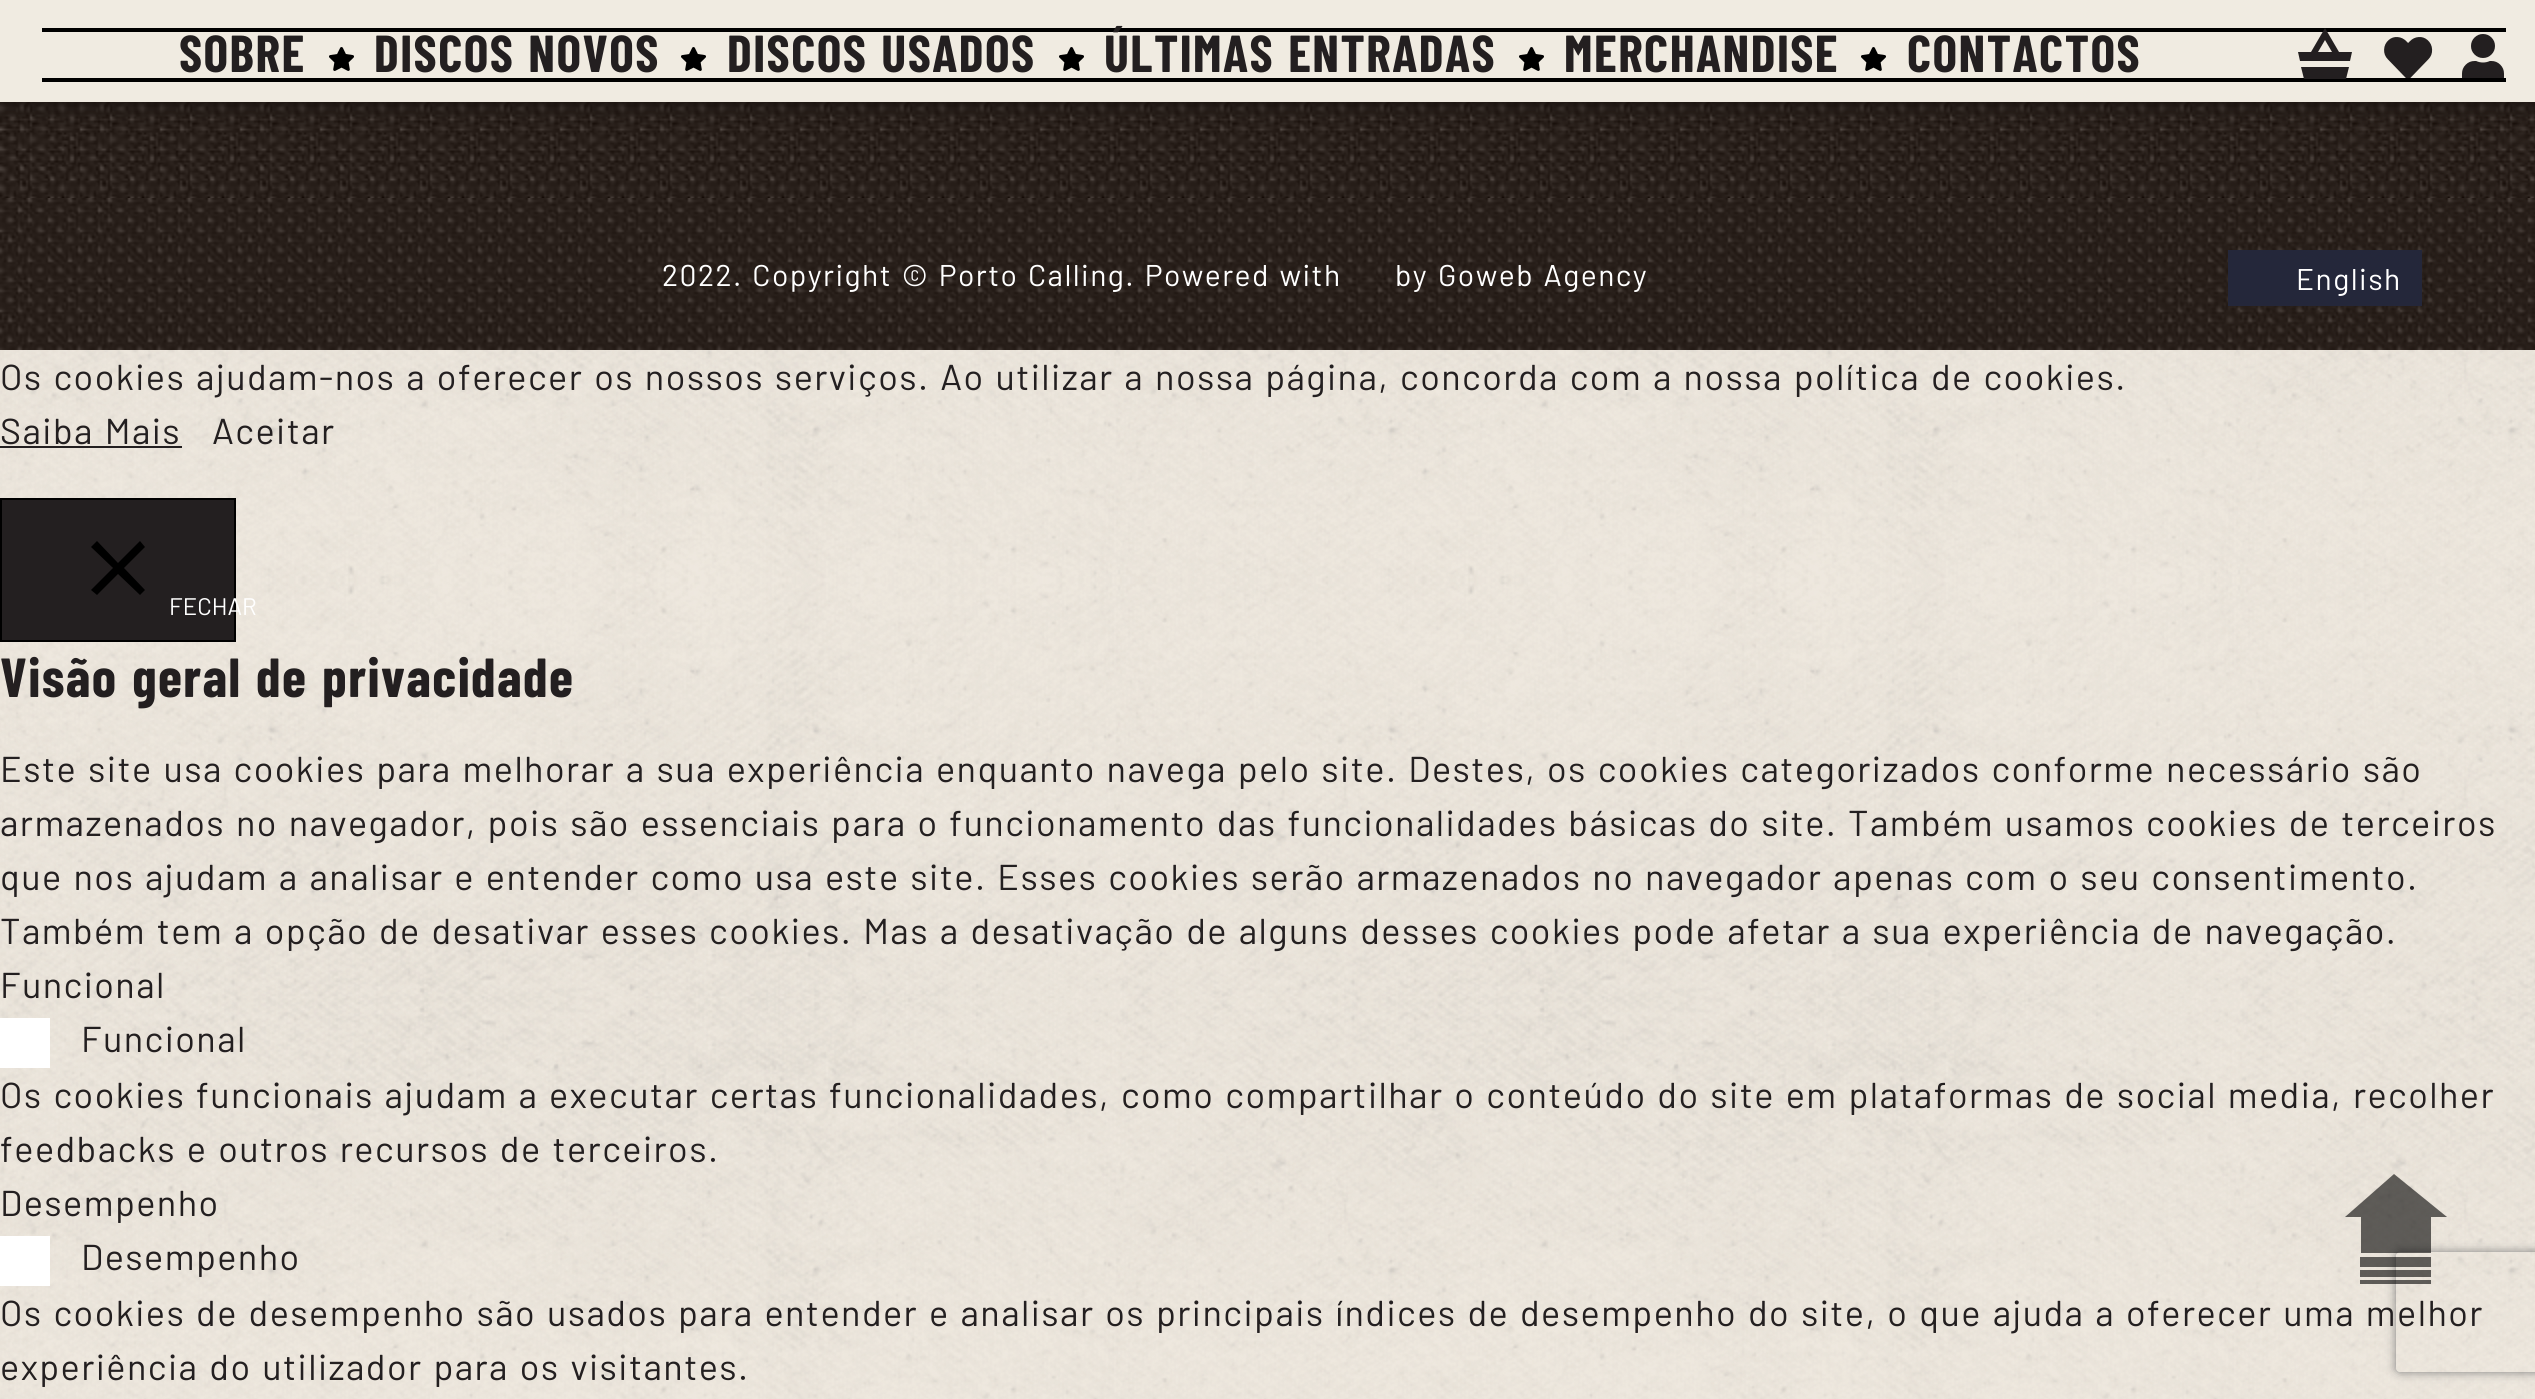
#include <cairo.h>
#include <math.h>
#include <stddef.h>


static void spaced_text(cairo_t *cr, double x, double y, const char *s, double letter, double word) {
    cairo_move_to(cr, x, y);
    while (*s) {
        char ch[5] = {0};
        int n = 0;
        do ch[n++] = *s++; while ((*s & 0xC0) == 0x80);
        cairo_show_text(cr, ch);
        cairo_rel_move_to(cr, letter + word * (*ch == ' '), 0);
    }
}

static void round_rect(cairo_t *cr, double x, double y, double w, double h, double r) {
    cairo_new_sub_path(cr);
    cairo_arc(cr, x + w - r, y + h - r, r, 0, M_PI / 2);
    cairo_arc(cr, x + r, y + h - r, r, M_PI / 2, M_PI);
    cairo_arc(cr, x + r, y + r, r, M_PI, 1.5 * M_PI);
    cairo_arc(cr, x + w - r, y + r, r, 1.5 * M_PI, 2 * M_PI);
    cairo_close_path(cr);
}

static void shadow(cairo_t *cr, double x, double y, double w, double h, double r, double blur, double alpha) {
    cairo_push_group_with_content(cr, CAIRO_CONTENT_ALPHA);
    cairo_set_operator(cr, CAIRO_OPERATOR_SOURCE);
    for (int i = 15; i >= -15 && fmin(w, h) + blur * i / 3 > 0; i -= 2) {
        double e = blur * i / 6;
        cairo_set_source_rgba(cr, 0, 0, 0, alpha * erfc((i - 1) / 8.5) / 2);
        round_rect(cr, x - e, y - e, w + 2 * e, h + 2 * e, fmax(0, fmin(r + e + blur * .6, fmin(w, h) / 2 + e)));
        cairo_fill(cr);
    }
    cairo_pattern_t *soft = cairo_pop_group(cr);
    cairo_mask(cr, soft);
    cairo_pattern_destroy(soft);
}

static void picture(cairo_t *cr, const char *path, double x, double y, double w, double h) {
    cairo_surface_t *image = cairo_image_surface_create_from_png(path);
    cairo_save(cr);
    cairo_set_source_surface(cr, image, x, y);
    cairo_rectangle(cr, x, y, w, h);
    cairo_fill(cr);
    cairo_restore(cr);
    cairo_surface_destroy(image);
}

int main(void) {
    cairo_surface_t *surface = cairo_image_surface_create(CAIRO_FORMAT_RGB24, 2535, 1399);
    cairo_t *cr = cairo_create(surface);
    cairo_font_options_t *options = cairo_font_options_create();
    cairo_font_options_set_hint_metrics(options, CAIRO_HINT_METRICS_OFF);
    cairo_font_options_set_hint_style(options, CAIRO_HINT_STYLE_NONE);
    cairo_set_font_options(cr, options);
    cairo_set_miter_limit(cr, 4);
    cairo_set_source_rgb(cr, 0.969, 0.949, 0.91);
    cairo_paint(cr);
    picture(cr, "img1.png", 0, 350, 2535, 1049);
    picture(cr, "img5.png", 0, 102, 2535, 96);
    cairo_set_source_rgb(cr, 0, 0, 0);
    shadow(cr, 0, 4, 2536, 102, 0, 10, 0.25);
    cairo_set_source_rgb(cr, 0.941, 0.918, 0.882);
    cairo_rectangle(cr, 0, 0, 2535, 102);
    cairo_fill(cr);
    cairo_select_font_face(cr, "Barlow Condensed", CAIRO_FONT_SLANT_NORMAL, CAIRO_FONT_WEIGHT_BOLD);
    cairo_set_font_size(cr, 52);
    cairo_set_source_rgb(cr, 0.137, 0.122, 0.125);
    spaced_text(cr, 179, 72, "SOBRE", 1.44, 0);
    picture(cr, "img2.png", 329, 47, 25, 24);
    spaced_text(cr, 374, 72, "DISCOS NOVOS", 1.44, 2.2);
    picture(cr, "img2.png", 681, 47, 25, 24);
    spaced_text(cr, 727, 72, "DISCOS USADOS", 1.44, 2.2);
    picture(cr, "img2.png", 1059, 47, 25, 24);
    cairo_set_source_rgb(cr, 0, 0, 0);
    cairo_rectangle(cr, 42, 28, 2464, 4);
    cairo_fill(cr);
    cairo_set_source_rgb(cr, 0.137, 0.122, 0.125);
    spaced_text(cr, 1104, 72, "ÚLTIMAS ENTRADAS", 1.44, 2.2);
    picture(cr, "img2.png", 1519, 47, 25, 24);
    spaced_text(cr, 1564, 72, "MERCHANDISE", 1.44, 0);
    picture(cr, "img2.png", 1861, 47, 25, 24);
    spaced_text(cr, 1907, 72, "CONTACTOS", 1.44, 0);
    cairo_set_source_rgb(cr, 0, 0, 0);
    cairo_rectangle(cr, 42, 78, 2464, 4);
    cairo_fill(cr);
    cairo_set_source_rgb(cr, 0.137, 0.122, 0.125);
    cairo_new_path(cr);
    cairo_move_to(cr, 2352, 52);
    cairo_line_to(cr, 2350, 61);
    cairo_line_to(cr, 2300, 61);
    cairo_line_to(cr, 2298, 52);
    cairo_line_to(cr, 2311, 52);
    cairo_line_to(cr, 2325, 28);
    cairo_line_to(cr, 2339, 52);
    cairo_close_path(cr);
    cairo_move_to(cr, 2325, 40);
    cairo_line_to(cr, 2318, 52);
    cairo_line_to(cr, 2332, 52);
    cairo_close_path(cr);
    cairo_move_to(cr, 2304, 79);
    cairo_line_to(cr, 2301, 67);
    cairo_line_to(cr, 2349, 67);
    cairo_line_to(cr, 2346, 79);
    cairo_close_path(cr);
    cairo_fill(cr);
    picture(cr, "img3.png", 2384, 37, 49, 41);
    picture(cr, "img4.png", 2462, 34, 42, 44);
    picture(cr, "img6.png", 0, 198, 2535, 152);
    cairo_select_font_face(cr, "Barlow", CAIRO_FONT_SLANT_NORMAL, CAIRO_FONT_WEIGHT_NORMAL);
    cairo_set_font_size(cr, 30);
    cairo_set_source_rgb(cr, 1, 1, 1);
    spaced_text(cr, 662, 286, "2022. Copyright © Porto Calling. Powered with", 1.44, 2.2);
    spaced_text(cr, 1395, 286, "by", 1.44, 0);
    spaced_text(cr, 1438, 286, "Goweb Agency", 1.44, 2.2);
    cairo_set_source_rgb(cr, 0.141, 0.153, 0.227);
    cairo_rectangle(cr, 2228, 250, 194, 56);
    cairo_fill(cr);
    cairo_set_source_rgb(cr, 1, 1, 1);
    spaced_text(cr, 2296, 290, "English", 1.44, 0);
    cairo_save(cr);
    cairo_set_fill_rule(cr, CAIRO_FILL_RULE_EVEN_ODD);
    cairo_new_path(cr);
    cairo_move_to(cr, 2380, 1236);
    cairo_line_to(cr, 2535, 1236);
    cairo_line_to(cr, 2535, 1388);
    cairo_line_to(cr, 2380, 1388);
    cairo_close_path(cr);
    cairo_move_to(cr, 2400, 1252);
    cairo_line_to(cr, 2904, 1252);
    cairo_curve_to(cr, 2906, 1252, 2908, 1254, 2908, 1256);
    cairo_line_to(cr, 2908, 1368);
    cairo_curve_to(cr, 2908, 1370, 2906, 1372, 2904, 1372);
    cairo_line_to(cr, 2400, 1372);
    cairo_curve_to(cr, 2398, 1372, 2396, 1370, 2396, 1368);
    cairo_line_to(cr, 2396, 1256);
    cairo_curve_to(cr, 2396, 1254, 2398, 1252, 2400, 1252);
    cairo_close_path(cr);
    cairo_clip(cr);
    cairo_set_source_rgb(cr, 0.502, 0.502, 0.502);
    shadow(cr, 2396, 1252, 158, 120, 4, 5, 1);
    cairo_restore(cr);
    cairo_set_source_rgba(cr, 0, 0, 0, 0.6);
    cairo_set_fill_rule(cr, CAIRO_FILL_RULE_EVEN_ODD);
    cairo_new_path(cr);
    cairo_move_to(cr, 2360, 1253);
    cairo_line_to(cr, 2431, 1253);
    cairo_line_to(cr, 2431, 1217);
    cairo_line_to(cr, 2447, 1217);
    cairo_line_to(cr, 2394, 1174);
    cairo_line_to(cr, 2345, 1217);
    cairo_line_to(cr, 2361, 1217);
    cairo_line_to(cr, 2361, 1253);
    cairo_close_path(cr);
    cairo_move_to(cr, 2360, 1267);
    cairo_line_to(cr, 2431, 1267);
    cairo_line_to(cr, 2431, 1257);
    cairo_line_to(cr, 2360, 1257);
    cairo_close_path(cr);
    cairo_move_to(cr, 2360, 1277);
    cairo_line_to(cr, 2431, 1277);
    cairo_line_to(cr, 2431, 1270);
    cairo_line_to(cr, 2360, 1270);
    cairo_close_path(cr);
    cairo_move_to(cr, 2360, 1284);
    cairo_line_to(cr, 2431, 1284);
    cairo_line_to(cr, 2431, 1280);
    cairo_line_to(cr, 2360, 1280);
    cairo_close_path(cr);
    cairo_fill(cr);
    cairo_set_font_size(cr, 36);
    cairo_set_source_rgb(cr, 0.137, 0.122, 0.125);
    spaced_text(cr, 0, 390, "Os cookies ajudam-nos a oferecer os nossos serviços. Ao utilizar a nossa página, concorda com a nossa política de cookies.", 1.44, 2.2);
    spaced_text(cr, 0, 444, "Saiba Mais", 1.44, 2.2);
    cairo_rectangle(cr, 0, 446, 182, 2);
    cairo_fill(cr);
    spaced_text(cr, 212, 444, "Aceitar", 1.44, 0);
    cairo_rectangle(cr, 1, 499, 234, 142);
    cairo_fill_preserve(cr);
    cairo_set_source_rgb(cr, 0, 0, 0);
    cairo_stroke(cr);
    cairo_set_fill_rule(cr, CAIRO_FILL_RULE_WINDING);
    cairo_new_path(cr);
    cairo_move_to(cr, 145, 547);
    cairo_line_to(cr, 140, 541);
    cairo_line_to(cr, 118, 563);
    cairo_line_to(cr, 97, 541);
    cairo_line_to(cr, 91, 547);
    cairo_line_to(cr, 113, 568);
    cairo_line_to(cr, 91, 590);
    cairo_line_to(cr, 97, 595);
    cairo_line_to(cr, 118, 574);
    cairo_line_to(cr, 140, 595);
    cairo_line_to(cr, 145, 590);
    cairo_line_to(cr, 124, 568);
    cairo_close_path(cr);
    cairo_fill(cr);
    cairo_set_font_size(cr, 24);
    cairo_set_source_rgb(cr, 1, 1, 1);
    cairo_move_to(cr, 169, 615);
    cairo_show_text(cr, "FECHAR");
    cairo_select_font_face(cr, "Barlow Condensed", CAIRO_FONT_SLANT_NORMAL, CAIRO_FONT_WEIGHT_BOLD);
    cairo_set_font_size(cr, 55);
    cairo_set_source_rgb(cr, 0.137, 0.122, 0.125);
    spaced_text(cr, 0, 697, "Visão geral de privacidade", 1.44, 2.2);
    cairo_select_font_face(cr, "Barlow", CAIRO_FONT_SLANT_NORMAL, CAIRO_FONT_WEIGHT_NORMAL);
    cairo_set_font_size(cr, 36);
    spaced_text(cr, 0, 782, "Este site usa cookies para melhorar a sua experiência enquanto navega pelo site. Destes, os cookies categorizados conforme necessário são", 1.44, 2.2);
    spaced_text(cr, 0, 836, "armazenados no navegador, pois são essenciais para o funcionamento das funcionalidades básicas do site. Também usamos cookies de terceiros", 1.44, 2.2);
    spaced_text(cr, 0, 890, "que nos ajudam a analisar e entender como usa este site. Esses cookies serão armazenados no navegador apenas com o seu consentimento.", 1.44, 2.2);
    spaced_text(cr, 0, 944, "Também tem a opção de desativar esses cookies. Mas a desativação de alguns desses cookies pode afetar a sua experiência de navegação.", 1.44, 2.2);
    spaced_text(cr, 0, 998, "Funcional", 1.44, 0);
    cairo_set_source_rgb(cr, 1, 1, 1);
    cairo_rectangle(cr, 0, 1018, 50, 50);
    cairo_fill(cr);
    cairo_set_source_rgb(cr, 0.137, 0.122, 0.125);
    spaced_text(cr, 81, 1052, "Funcional", 1.44, 0);
    spaced_text(cr, 0, 1108, "Os cookies funcionais ajudam a executar certas funcionalidades, como compartilhar o conteúdo do site em plataformas de social media, recolher", 1.44, 2.2);
    spaced_text(cr, 0, 1162, "feedbacks e outros recursos de terceiros.", 1.44, 2.2);
    spaced_text(cr, 0, 1216, "Desempenho", 1.44, 0);
    cairo_set_source_rgb(cr, 1, 1, 1);
    cairo_rectangle(cr, 0, 1236, 50, 50);
    cairo_fill(cr);
    cairo_set_source_rgb(cr, 0.137, 0.122, 0.125);
    spaced_text(cr, 81, 1270, "Desempenho", 1.44, 0);
    spaced_text(cr, 0, 1326, "Os cookies de desempenho são usados para entender e analisar os principais índices de desempenho do site, o que ajuda a oferecer uma melhor", 1.44, 2.2);
    spaced_text(cr, 0, 1380, "experiência do utilizador para os visitantes.", 1.44, 2.2);
    cairo_surface_write_to_png(surface, "page.png");
    cairo_font_options_destroy(options);
    cairo_destroy(cr);
    cairo_surface_destroy(surface);
    return 0;
}
